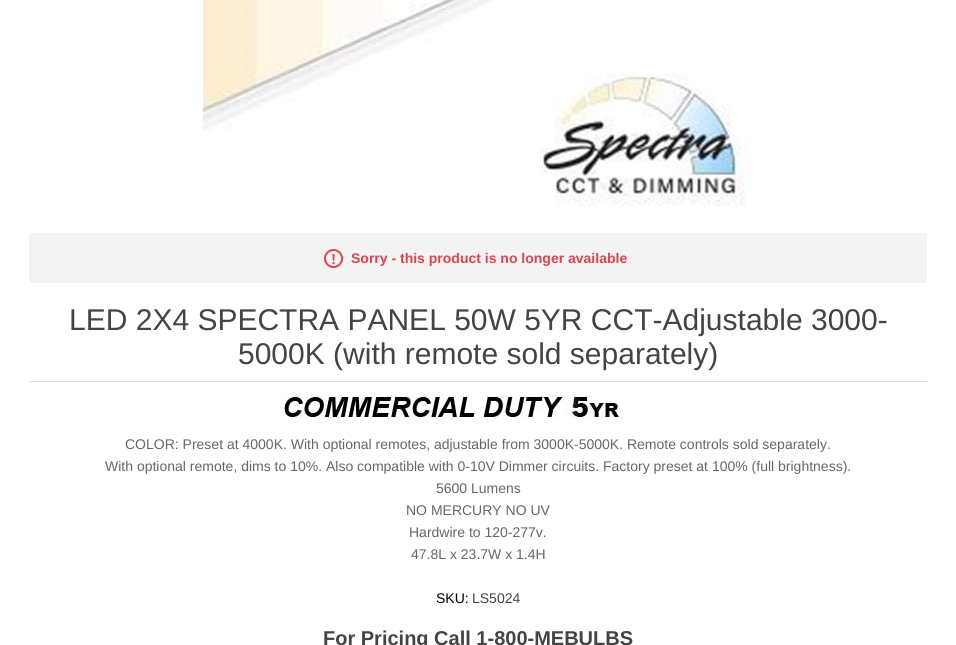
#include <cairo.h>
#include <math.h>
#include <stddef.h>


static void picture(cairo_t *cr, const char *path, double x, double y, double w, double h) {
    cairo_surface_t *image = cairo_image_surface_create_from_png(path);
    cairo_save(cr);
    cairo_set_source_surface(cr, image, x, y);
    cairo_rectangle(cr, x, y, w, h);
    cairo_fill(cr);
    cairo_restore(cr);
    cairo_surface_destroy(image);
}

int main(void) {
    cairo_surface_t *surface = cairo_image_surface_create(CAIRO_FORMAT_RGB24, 956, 645);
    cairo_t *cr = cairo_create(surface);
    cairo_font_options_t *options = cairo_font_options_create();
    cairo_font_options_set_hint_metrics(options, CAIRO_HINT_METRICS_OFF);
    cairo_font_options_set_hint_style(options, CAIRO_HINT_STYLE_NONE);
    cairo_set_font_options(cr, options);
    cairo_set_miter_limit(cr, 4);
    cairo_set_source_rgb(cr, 1, 1, 1);
    cairo_paint(cr);
    picture(cr, "img1.png", 203, 0, 550, 207);
    cairo_set_source_rgb(cr, 0.953, 0.953, 0.953);
    cairo_rectangle(cr, 29, 233, 898, 50);
    cairo_fill(cr);
    picture(cr, "img2.png", 324, 249, 19, 19);
    cairo_select_font_face(cr, "Liberation Sans", CAIRO_FONT_SLANT_NORMAL, CAIRO_FONT_WEIGHT_BOLD);
    cairo_set_font_size(cr, 14);
    cairo_set_source_rgb(cr, 0.871, 0.267, 0.298);
    cairo_move_to(cr, 351, 263);
    cairo_show_text(cr, "Sorry - this product is no longer available");
    cairo_set_source_rgb(cr, 0.867, 0.867, 0.867);
    cairo_rectangle(cr, 29, 381, 898, 1);
    cairo_fill(cr);
    cairo_select_font_face(cr, "Liberation Sans", CAIRO_FONT_SLANT_NORMAL, CAIRO_FONT_WEIGHT_NORMAL);
    cairo_set_font_size(cr, 30);
    cairo_set_source_rgb(cr, 0.267, 0.267, 0.267);
    cairo_move_to(cr, 69, 330);
    cairo_show_text(cr, "LED 2X4 SPECTRA PANEL 50W 5YR CCT-Adjustable 3000-");
    cairo_move_to(cr, 238, 364);
    cairo_show_text(cr, "5000K (with remote sold separately)");
    picture(cr, "img3.png", 280, 395, 342, 24);
    cairo_set_font_size(cr, 14);
    cairo_set_source_rgb(cr, 0.4, 0.4, 0.4);
    cairo_move_to(cr, 125, 449);
    cairo_show_text(cr, "COLOR: Preset at 4000K. With optional remotes, adjustable from 3000K-5000K. Remote controls sold separately.");
    cairo_move_to(cr, 105, 471);
    cairo_show_text(cr, "With optional remote, dims to 10%. Also compatible with 0-10V Dimmer circuits. Factory preset at 100% (full brightness).");
    cairo_move_to(cr, 436, 493);
    cairo_show_text(cr, "5600 Lumens");
    cairo_move_to(cr, 406, 515);
    cairo_show_text(cr, "NO MERCURY NO UV");
    cairo_move_to(cr, 409, 537);
    cairo_show_text(cr, "Hardwire to 120-277v.");
    cairo_move_to(cr, 411, 559);
    cairo_show_text(cr, "47.8L x 23.7W x 1.4H");
    cairo_set_source_rgb(cr, 0, 0, 0);
    cairo_move_to(cr, 436, 603);
    cairo_show_text(cr, "SKU:");
    cairo_set_source_rgb(cr, 0.267, 0.267, 0.267);
    cairo_move_to(cr, 472, 603);
    cairo_show_text(cr, "LS5024");
    cairo_select_font_face(cr, "Liberation Sans", CAIRO_FONT_SLANT_NORMAL, CAIRO_FONT_WEIGHT_BOLD);
    cairo_set_font_size(cr, 20);
    cairo_move_to(cr, 323, 645);
    cairo_show_text(cr, "For Pricing Call 1-800-MEBULBS");
    cairo_surface_write_to_png(surface, "page.png");
    cairo_font_options_destroy(options);
    cairo_destroy(cr);
    cairo_surface_destroy(surface);
    return 0;
}
